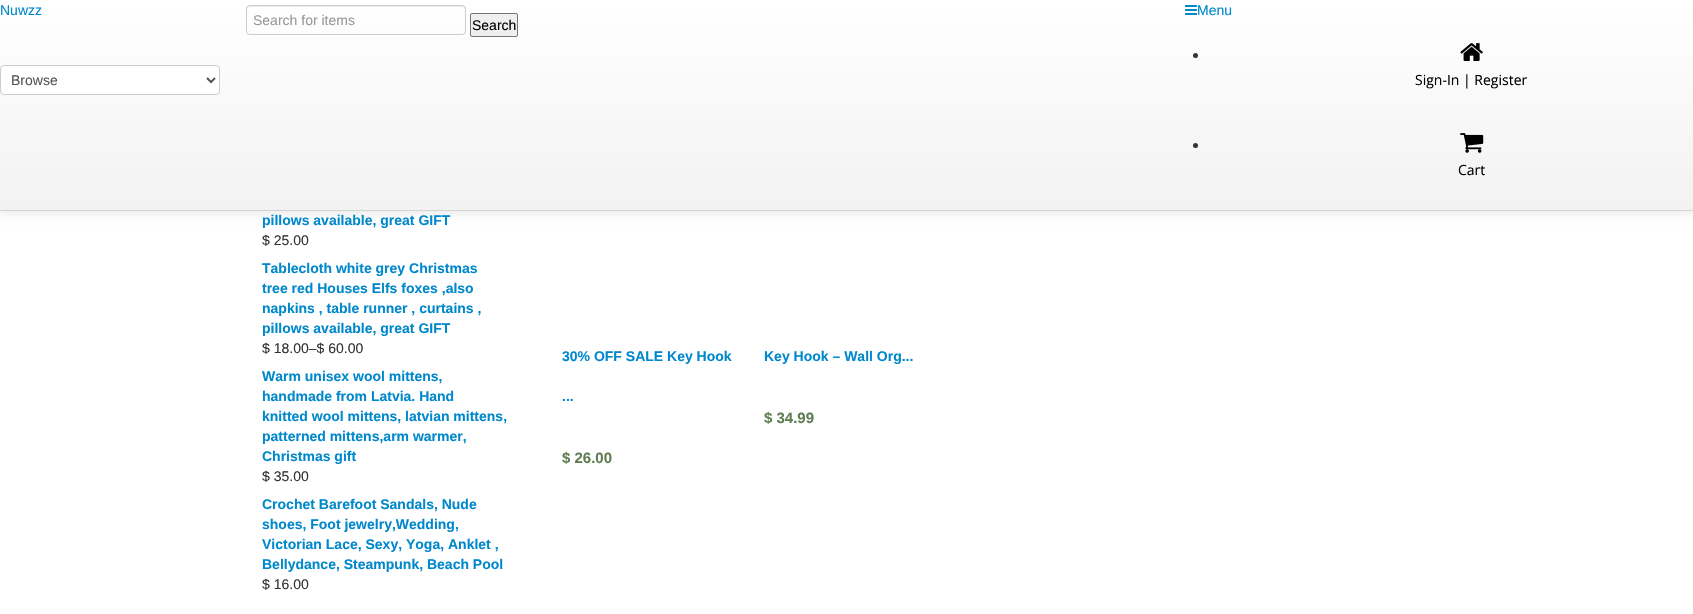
void draw(SkCanvas* canvas) {
    SkPaint paint;
    paint.setAntiAlias(true);
    canvas->clear(0xFFFFFFFF);
    paint.setColor(0x1A000000);
    paint.setMaskFilter(SkMaskFilter::MakeBlur(kNormal_SkBlurStyle, 5));
    canvas->drawRect(SkRect::MakeXYWH(0, 1, 1693, 211), paint);
    paint.setMaskFilter(nullptr);
    {
        const SkColor colors[] = {0xFFFFFFFF, 0xFFF2F2F2};
        const float stops[] = {0, 1};
        const SkPoint ends[] = {{847, 0}, {847, 210}};
        paint.setShader(SkGradientShader::MakeLinear(ends, colors, stops, 2, SkTileMode::kClamp));
        paint.setAlpha(255);
    }
    canvas->drawRect(SkRect::MakeXYWH(0, 0, 1693, 210), paint);
    paint.setShader(nullptr);
    paint.setColor(0xFFD4D4D4);
    canvas->drawRect(SkRect::MakeXYWH(0, 210, 1693, 1), paint);
    SkFont font1(fontMgr->matchFamilyStyle("Liberation Sans", SkFontStyle::Normal()), 14);
    font1.setSubpixel(true);
    paint.setColor(0xFF0088CC);
    canvas->drawString("Nuwzz", 0, 15, font1, paint);
    paint.setColor(0xFFECECEC);
    canvas->drawPath(SkPathBuilder().moveTo(250, 7).lineTo(462, 7).cubicTo(464, 7, 465, 8, 465, 10).lineTo(465, 9).cubicTo(465, 7, 464, 6, 462, 6).lineTo(250, 6).cubicTo(248, 6, 247, 7, 247, 9).lineTo(247, 10).cubicTo(247, 8, 248, 7, 250, 7).close().detach(), paint);
    paint.setStyle(SkPaint::kStroke_Style);
    paint.setStrokeWidth(1);
    paint.setColor(0xFFCCCCCC);
    canvas->drawRoundRect(SkRect::MakeXYWH(246.5f, 5.5f, 219, 29), 3.5f, 3.5f, paint);
    paint.setStyle(SkPaint::kFill_Style);
    paint.setColor(0xFF999999);
    canvas->drawString("Search for items", 253, 25, font1, paint);
    paint.setColor(0xFFEFEFEF);
    canvas->drawRoundRect(SkRect::MakeXYWH(470.5f, 13.5f, 47, 23), 1.5f, 1.5f, paint);
    paint.setStyle(SkPaint::kStroke_Style);
    paint.setColor(0xFF767676);
    canvas->drawRoundRect(SkRect::MakeXYWH(470.5f, 13.5f, 47, 23), 1.5f, 1.5f, paint);
    paint.setStyle(SkPaint::kFill_Style);
    paint.setColor(0xFF000000);
    canvas->drawString("Search", 472, 30, font1, paint);
    canvas->drawImageRect(SkImages::DeferredFromEncodedData(SkData::MakeFromFileName("img1.png")), SkRect::MakeXYWH(1185, 5, 12, 10), SkSamplingOptions());
    paint.setColor(0xFF0088CC);
    canvas->drawString("Menu", 1197, 15, font1, paint);
    paint.setColor(0xFF333333);
    canvas->drawCircle(1195.5f, 55.5f, 2.5f, paint);
    canvas->drawImageRect(SkImages::DeferredFromEncodedData(SkData::MakeFromFileName("img2.png")), SkRect::MakeXYWH(1460, 43, 23, 18), SkSamplingOptions());
    SkFont font2(fontMgr->matchFamilyStyle("Open Sans", SkFontStyle::Normal()), 14);
    font2.setSubpixel(true);
    paint.setColor(0xFF000000);
    canvas->drawString("Sign-In | Register", 1415, 85, font2, paint);
    paint.setColor(0xFF333333);
    canvas->drawCircle(1195.5f, 145.5f, 2.5f, paint);
    canvas->drawImageRect(SkImages::DeferredFromEncodedData(SkData::MakeFromFileName("img3.png")), SkRect::MakeXYWH(1460, 133, 24, 20), SkSamplingOptions());
    paint.setColor(0xFF000000);
    canvas->drawString("Cart", 1458, 175, font2, paint);
    paint.setColor(0xFFFFFFFF);
    canvas->drawRoundRect(SkRect::MakeXYWH(0.5f, 65.5f, 219, 29), 3.5f, 3.5f, paint);
    paint.setStyle(SkPaint::kStroke_Style);
    paint.setColor(0xFFCCCCCC);
    canvas->drawRoundRect(SkRect::MakeXYWH(0.5f, 65.5f, 219, 29), 3.5f, 3.5f, paint);
    paint.setStrokeWidth(2);
    paint.setColor(0xFF555555);
    canvas->drawPath(SkPathBuilder().moveTo(207, 78).lineTo(211, 82).lineTo(215, 78).detach(), paint);
    paint.setStyle(SkPaint::kFill_Style);
    canvas->drawString("Browse", 11, 85, font1, paint);
    SkFont font3(fontMgr->matchFamilyStyle("Liberation Sans", SkFontStyle::Bold()), 14);
    font3.setSubpixel(true);
    paint.setColor(0xFF0088CC);
    canvas->drawString("pillows available, great GIFT", 262, 225, font3, paint);
    paint.setColor(0xFF333333);
    canvas->drawString("$ 25.00", 262, 245, font1, paint);
    paint.setColor(0xFF0088CC);
    canvas->drawString("Tablecloth white grey Christmas", 262, 273, font3, paint);
    canvas->drawString("tree red Houses Elfs foxes ,also", 262, 293, font3, paint);
    canvas->drawString("napkins , table runner , curtains ,", 262, 313, font3, paint);
    canvas->drawString("pillows available, great GIFT", 262, 333, font3, paint);
    paint.setColor(0xFF333333);
    canvas->drawString("$ 18.00–$ 60.00", 262, 353, font1, paint);
    paint.setColor(0xFF0088CC);
    canvas->drawString("Warm unisex wool mittens,", 262, 381, font3, paint);
    canvas->drawString("handmade from Latvia. Hand", 262, 401, font3, paint);
    canvas->drawString("knitted wool mittens, latvian mittens,", 262, 421, font3, paint);
    canvas->drawString("patterned mittens,arm warmer,", 262, 441, font3, paint);
    canvas->drawString("Christmas gift", 262, 461, font3, paint);
    paint.setColor(0xFF333333);
    canvas->drawString("$ 35.00", 262, 481, font1, paint);
    paint.setColor(0xFF0088CC);
    canvas->drawString("Crochet Barefoot Sandals, Nude", 262, 509, font3, paint);
    canvas->drawString("shoes, Foot jewelry,Wedding,", 262, 529, font3, paint);
    canvas->drawString("Victorian Lace, Sexy, Yoga, Anklet ,", 262, 549, font3, paint);
    canvas->drawString("Bellydance, Steampunk, Beach Pool", 262, 569, font3, paint);
    paint.setColor(0xFF333333);
    canvas->drawString("$ 16.00", 262, 589, font1, paint);
    paint.setColor(0xFF0088CC);
    canvas->drawString("30% OFF SALE Key Hook", 562, 361, font3, paint);
    canvas->drawString("...", 562, 401, font3, paint);
    SkFont font4(fontMgr->matchFamilyStyle("Liberation Sans", SkFontStyle::Bold()), 15);
    font4.setSubpixel(true);
    paint.setColor(0xFF5E7E51);
    canvas->drawString("$ 26.00", 562, 463, font4, paint);
    paint.setColor(0xFF0088CC);
    canvas->drawString("Key Hook – Wall Org...", 764, 361, font3, paint);
    paint.setColor(0xFF5E7E51);
    canvas->drawString("$ 34.99", 764, 423, font4, paint);
}
